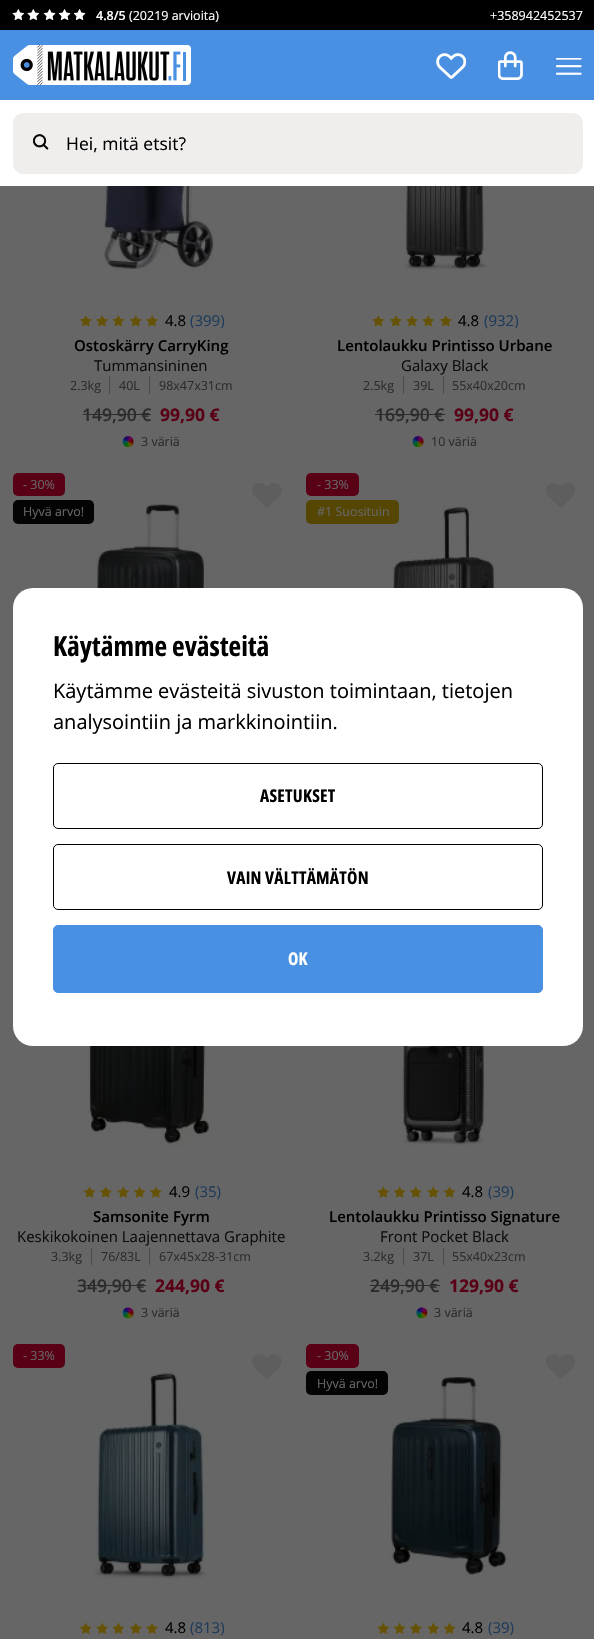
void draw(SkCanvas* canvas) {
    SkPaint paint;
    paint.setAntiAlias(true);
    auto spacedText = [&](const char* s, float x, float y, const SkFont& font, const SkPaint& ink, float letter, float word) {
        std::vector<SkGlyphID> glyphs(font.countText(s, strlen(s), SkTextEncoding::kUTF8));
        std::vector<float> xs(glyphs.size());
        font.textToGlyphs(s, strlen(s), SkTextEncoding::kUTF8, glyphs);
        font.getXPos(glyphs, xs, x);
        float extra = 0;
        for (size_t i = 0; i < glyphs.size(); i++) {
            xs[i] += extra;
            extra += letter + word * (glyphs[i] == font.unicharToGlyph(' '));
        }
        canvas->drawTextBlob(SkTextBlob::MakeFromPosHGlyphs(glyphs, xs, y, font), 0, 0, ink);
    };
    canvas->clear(0xFF666666);
    paint.setColor(0xFF000000);
    canvas->drawRect(SkRect::MakeXYWH(0, 0, 594, 30), paint);
    canvas->drawImageRect(SkImages::DeferredFromEncodedData(SkData::MakeFromFileName("img1.png")), SkRect::MakeXYWH(12, 9, 12, 12), SkSamplingOptions());
    canvas->drawImageRect(SkImages::DeferredFromEncodedData(SkData::MakeFromFileName("img1.png")), SkRect::MakeXYWH(27, 9, 12, 12), SkSamplingOptions());
    canvas->drawImageRect(SkImages::DeferredFromEncodedData(SkData::MakeFromFileName("img2.png")), SkRect::MakeXYWH(43, 9, 13, 12), SkSamplingOptions());
    canvas->drawImageRect(SkImages::DeferredFromEncodedData(SkData::MakeFromFileName("img2.png")), SkRect::MakeXYWH(58, 9, 13, 12), SkSamplingOptions());
    canvas->drawImageRect(SkImages::DeferredFromEncodedData(SkData::MakeFromFileName("img2.png")), SkRect::MakeXYWH(73, 9, 13, 12), SkSamplingOptions());
    SkFont font1(fontMgr->matchFamilyStyle("Open Sans", SkFontStyle(600, SkFontStyle::kNormal_Width, SkFontStyle::kUpright_Slant)), 12.5f);
    font1.setSubpixel(true);
    paint.setColor(0xFFFFFFFF);
    canvas->drawString("4.8/5", 96, 20, font1, paint);
    SkFont font2(fontMgr->matchFamilyStyle("Open Sans", SkFontStyle::Normal()), 12.5f);
    font2.setSubpixel(true);
    canvas->drawString("(20219 arvioita)", 129, 20, font2, paint);
    canvas->drawString("+358942452537", 490, 20, font2, paint);
    paint.setColor(0xFF4A90E2);
    canvas->drawRect(SkRect::MakeXYWH(0, 30, 594, 70), paint);
    canvas->drawImageRect(SkImages::DeferredFromEncodedData(SkData::MakeFromFileName("img3.png")), SkRect::MakeXYWH(13, 45, 178, 40), SkSamplingOptions());
    canvas->drawImageRect(SkImages::DeferredFromEncodedData(SkData::MakeFromFileName("img4.png")), SkRect::MakeXYWH(436, 53, 30, 26), SkSamplingOptions());
    canvas->drawImageRect(SkImages::DeferredFromEncodedData(SkData::MakeFromFileName("img5.png")), SkRect::MakeXYWH(498, 51, 25, 29), SkSamplingOptions());
    canvas->drawImageRect(SkImages::DeferredFromEncodedData(SkData::MakeFromFileName("img6.png")), SkRect::MakeXYWH(556, 58, 26, 17), SkSamplingOptions());
    paint.setColor(0xFFFFFFFF);
    canvas->drawRect(SkRect::MakeXYWH(0, 100, 594, 86), paint);
    paint.setColor(0xFFF0EEED);
    canvas->drawRoundRect(SkRect::MakeXYWH(13.5f, 113.5f, 569, 60), 9.5f, 9.5f, paint);
    paint.setStyle(SkPaint::kStroke_Style);
    paint.setStrokeWidth(1);
    canvas->drawRoundRect(SkRect::MakeXYWH(13.5f, 113.5f, 569, 60), 9.5f, 9.5f, paint);
    canvas->drawImageRect(SkImages::DeferredFromEncodedData(SkData::MakeFromFileName("img7.png")), SkRect::MakeXYWH(33, 134, 16, 16), SkSamplingOptions());
    SkFont font3(fontMgr->matchFamilyStyle("Open Sans", SkFontStyle::Normal()), 17.5f);
    font3.setSubpixel(true);
    paint.setStyle(SkPaint::kFill_Style);
    paint.setColor(0xFF000000);
    canvas->drawString("Hei, mitä etsit?", 66, 150, font3, paint);
    canvas->drawImageRect(SkImages::DeferredFromEncodedData(SkData::MakeFromFileName("img8.png")), SkRect::MakeXYWH(103, 186, 111, 85), SkSamplingOptions());
    canvas->drawImageRect(SkImages::DeferredFromEncodedData(SkData::MakeFromFileName("img9.png")), SkRect::MakeXYWH(80, 315, 12, 12), SkSamplingOptions());
    canvas->drawImageRect(SkImages::DeferredFromEncodedData(SkData::MakeFromFileName("img10.png")), SkRect::MakeXYWH(96, 315, 12, 12), SkSamplingOptions());
    canvas->drawImageRect(SkImages::DeferredFromEncodedData(SkData::MakeFromFileName("img11.png")), SkRect::MakeXYWH(112, 315, 12, 12), SkSamplingOptions());
    canvas->drawImageRect(SkImages::DeferredFromEncodedData(SkData::MakeFromFileName("img9.png")), SkRect::MakeXYWH(130, 315, 12, 12), SkSamplingOptions());
    canvas->drawImageRect(SkImages::DeferredFromEncodedData(SkData::MakeFromFileName("img10.png")), SkRect::MakeXYWH(146, 315, 12, 12), SkSamplingOptions());
    SkFont font4(fontMgr->matchFamilyStyle("Open Sans", SkFontStyle::Normal()), 15);
    font4.setSubpixel(true);
    canvas->drawString("4.8", 165, 326, font4, paint);
    paint.setColor(0xFF1E3A5A);
    canvas->drawString("(399)", 190, 326, font4, paint);
    SkFont font5(fontMgr->matchFamilyStyle("Open Sans", SkFontStyle(600, SkFontStyle::kNormal_Width, SkFontStyle::kUpright_Slant)), 15);
    font5.setSubpixel(true);
    paint.setColor(0xFF000000);
    canvas->drawString("Ostoskärry CarryKing", 74, 351, font5, paint);
    paint.setColor(0xFF0C0C0C);
    canvas->drawString("Tummansininen", 94, 371, font4, paint);
    paint.setColor(0xFF2C2C2C);
    canvas->drawString("2.3kg", 70, 390, font2, paint);
    paint.setColor(0xFF4B4B4B);
    canvas->drawRect(SkRect::MakeXYWH(109, 376, 1, 18), paint);
    paint.setColor(0xFF2C2C2C);
    canvas->drawString("40L", 119, 390, font2, paint);
    paint.setColor(0xFF4B4B4B);
    canvas->drawRect(SkRect::MakeXYWH(149, 376, 1, 18), paint);
    paint.setColor(0xFF2C2C2C);
    canvas->drawString("98x47x31cm", 159, 390, font2, paint);
    SkFont font6(fontMgr->matchFamilyStyle("Open Sans", SkFontStyle(600, SkFontStyle::kNormal_Width, SkFontStyle::kUpright_Slant)), 17.5f);
    font6.setSubpixel(true);
    canvas->drawString("149,90 €", 82, 421, font6, paint);
    canvas->drawRect(SkRect::MakeXYWH(83, 414, 68, 1), paint);
    SkFont font7(fontMgr->matchFamilyStyle("Open Sans", SkFontStyle::Bold()), 17.5f);
    font7.setSubpixel(true);
    paint.setColor(0xFF5A0016);
    canvas->drawString("99,90 €", 160, 421, font7, paint);
    canvas->drawImageRect(SkImages::DeferredFromEncodedData(SkData::MakeFromFileName("img12.png")), SkRect::MakeXYWH(122, 436, 12, 12), SkSamplingOptions());
    paint.setColor(0xFF2C2C2C);
    canvas->drawString("3 väriä", 141, 446, font2, paint);
    canvas->drawImageRect(SkImages::DeferredFromEncodedData(SkData::MakeFromFileName("img13.png")), SkRect::MakeXYWH(403, 186, 86, 85), SkSamplingOptions());
    canvas->drawImageRect(SkImages::DeferredFromEncodedData(SkData::MakeFromFileName("img11.png")), SkRect::MakeXYWH(372, 315, 12, 12), SkSamplingOptions());
    canvas->drawImageRect(SkImages::DeferredFromEncodedData(SkData::MakeFromFileName("img9.png")), SkRect::MakeXYWH(390, 315, 12, 12), SkSamplingOptions());
    canvas->drawImageRect(SkImages::DeferredFromEncodedData(SkData::MakeFromFileName("img10.png")), SkRect::MakeXYWH(406, 315, 12, 12), SkSamplingOptions());
    canvas->drawImageRect(SkImages::DeferredFromEncodedData(SkData::MakeFromFileName("img11.png")), SkRect::MakeXYWH(422, 315, 12, 12), SkSamplingOptions());
    canvas->drawImageRect(SkImages::DeferredFromEncodedData(SkData::MakeFromFileName("img9.png")), SkRect::MakeXYWH(440, 315, 12, 12), SkSamplingOptions());
    paint.setColor(0xFF000000);
    canvas->drawString("4.8", 458, 326, font4, paint);
    paint.setColor(0xFF1E3A5A);
    canvas->drawString("(932)", 484, 326, font4, paint);
    paint.setColor(0xFF000000);
    canvas->drawString("Lentolaukku Printisso Urbane", 337, 351, font5, paint);
    paint.setColor(0xFF0C0C0C);
    canvas->drawString("Galaxy Black", 401, 371, font4, paint);
    paint.setColor(0xFF2C2C2C);
    canvas->drawString("2.5kg", 363, 390, font2, paint);
    paint.setColor(0xFF4B4B4B);
    canvas->drawRect(SkRect::MakeXYWH(403, 376, 1, 18), paint);
    paint.setColor(0xFF2C2C2C);
    canvas->drawString("39L", 413, 390, font2, paint);
    paint.setColor(0xFF4B4B4B);
    canvas->drawRect(SkRect::MakeXYWH(443, 376, 1, 18), paint);
    paint.setColor(0xFF2C2C2C);
    canvas->drawString("55x40x20cm", 452, 390, font2, paint);
    canvas->drawString("169,90 €", 375, 421, font6, paint);
    canvas->drawRect(SkRect::MakeXYWH(375, 414, 70, 1), paint);
    paint.setColor(0xFF5A0016);
    canvas->drawString("99,90 €", 454, 421, font7, paint);
    canvas->drawImageRect(SkImages::DeferredFromEncodedData(SkData::MakeFromFileName("img14.png")), SkRect::MakeXYWH(412, 436, 12, 12), SkSamplingOptions());
    paint.setColor(0xFF2C2C2C);
    canvas->drawString("10 väriä", 431, 446, font2, paint);
    paint.setColor(0xFF5A0016);
    canvas->drawRoundRect(SkRect::MakeXYWH(13, 473, 52, 23), 5, 5, paint);
    paint.setColor(0xFF666666);
    canvas->drawString("- 30%", 23, 489, font2, paint);
    paint.setColor(0xFF040404);
    canvas->drawRoundRect(SkRect::MakeXYWH(13, 500, 81, 24), 5, 5, paint);
    paint.setColor(0xFF666666);
    canvas->drawString("Hyvä arvo!", 23, 516, font2, paint);
    canvas->drawImageRect(SkImages::DeferredFromEncodedData(SkData::MakeFromFileName("img15.png")), SkRect::MakeXYWH(252, 482, 30, 26), SkSamplingOptions());
    canvas->drawImageRect(SkImages::DeferredFromEncodedData(SkData::MakeFromFileName("img16.png")), SkRect::MakeXYWH(96, 501, 115, 87), SkSamplingOptions());
    paint.setColor(0xFF5A0016);
    canvas->drawRoundRect(SkRect::MakeXYWH(306, 473, 53, 23), 5, 5, paint);
    paint.setColor(0xFF666666);
    canvas->drawString("- 33%", 317, 489, font2, paint);
    canvas->drawImageRect(SkImages::DeferredFromEncodedData(SkData::MakeFromFileName("img18.png")), SkRect::MakeXYWH(390, 507, 109, 81), SkSamplingOptions());
    paint.setColor(0xFF554604);
    canvas->drawRoundRect(SkRect::MakeXYWH(306, 500, 93, 24), 5, 5, paint);
    paint.setColor(0xFF666666);
    canvas->drawString("#1 Suosituin", 317, 516, font2, paint);
    canvas->drawImageRect(SkImages::DeferredFromEncodedData(SkData::MakeFromFileName("img17.png")), SkRect::MakeXYWH(546, 482, 30, 26), SkSamplingOptions());
    canvas->drawImageRect(SkImages::DeferredFromEncodedData(SkData::MakeFromFileName("img19.png")), SkRect::MakeXYWH(86, 1046, 126, 101), SkSamplingOptions());
    canvas->drawImageRect(SkImages::DeferredFromEncodedData(SkData::MakeFromFileName("img20.png")), SkRect::MakeXYWH(83, 1186, 13, 12), SkSamplingOptions());
    canvas->drawImageRect(SkImages::DeferredFromEncodedData(SkData::MakeFromFileName("img21.png")), SkRect::MakeXYWH(100, 1186, 12, 12), SkSamplingOptions());
    canvas->drawImageRect(SkImages::DeferredFromEncodedData(SkData::MakeFromFileName("img22.png")), SkRect::MakeXYWH(117, 1186, 12, 12), SkSamplingOptions());
    canvas->drawImageRect(SkImages::DeferredFromEncodedData(SkData::MakeFromFileName("img20.png")), SkRect::MakeXYWH(133, 1186, 13, 12), SkSamplingOptions());
    canvas->drawImageRect(SkImages::DeferredFromEncodedData(SkData::MakeFromFileName("img21.png")), SkRect::MakeXYWH(150, 1186, 12, 12), SkSamplingOptions());
    paint.setColor(0xFF000000);
    canvas->drawString("4.9", 169, 1197, font4, paint);
    paint.setColor(0xFF1E3A5A);
    canvas->drawString("(35)", 195, 1197, font4, paint);
    paint.setColor(0xFF000000);
    canvas->drawString("Samsonite Fyrm", 93, 1222, font5, paint);
    paint.setColor(0xFF0C0C0C);
    canvas->drawString("Keskikokoinen Laajennettava Graphite", 17, 1242, font4, paint);
    paint.setColor(0xFF2C2C2C);
    canvas->drawString("3.3kg", 51, 1261, font2, paint);
    paint.setColor(0xFF4B4B4B);
    canvas->drawRect(SkRect::MakeXYWH(91, 1248, 1, 17), paint);
    paint.setColor(0xFF2C2C2C);
    canvas->drawString("76/83L", 101, 1261, font2, paint);
    paint.setColor(0xFF4B4B4B);
    canvas->drawRect(SkRect::MakeXYWH(149, 1248, 1, 17), paint);
    paint.setColor(0xFF2C2C2C);
    canvas->drawString("67x45x28-31cm", 159, 1261, font2, paint);
    canvas->drawString("349,90 €", 77, 1292, font6, paint);
    canvas->drawRect(SkRect::MakeXYWH(78, 1285, 68, 1), paint);
    paint.setColor(0xFF5A0016);
    canvas->drawString("244,90 €", 155, 1292, font7, paint);
    canvas->drawImageRect(SkImages::DeferredFromEncodedData(SkData::MakeFromFileName("img23.png")), SkRect::MakeXYWH(122, 1307, 12, 12), SkSamplingOptions());
    paint.setColor(0xFF2C2C2C);
    canvas->drawString("3 väriä", 141, 1317, font2, paint);
    canvas->drawImageRect(SkImages::DeferredFromEncodedData(SkData::MakeFromFileName("img24.png")), SkRect::MakeXYWH(402, 1046, 86, 101), SkSamplingOptions());
    canvas->drawImageRect(SkImages::DeferredFromEncodedData(SkData::MakeFromFileName("img22.png")), SkRect::MakeXYWH(377, 1186, 12, 12), SkSamplingOptions());
    canvas->drawImageRect(SkImages::DeferredFromEncodedData(SkData::MakeFromFileName("img20.png")), SkRect::MakeXYWH(393, 1186, 13, 12), SkSamplingOptions());
    canvas->drawImageRect(SkImages::DeferredFromEncodedData(SkData::MakeFromFileName("img21.png")), SkRect::MakeXYWH(410, 1186, 12, 12), SkSamplingOptions());
    canvas->drawImageRect(SkImages::DeferredFromEncodedData(SkData::MakeFromFileName("img22.png")), SkRect::MakeXYWH(427, 1186, 12, 12), SkSamplingOptions());
    canvas->drawImageRect(SkImages::DeferredFromEncodedData(SkData::MakeFromFileName("img20.png")), SkRect::MakeXYWH(443, 1186, 13, 12), SkSamplingOptions());
    paint.setColor(0xFF000000);
    canvas->drawString("4.8", 462, 1197, font4, paint);
    paint.setColor(0xFF1E3A5A);
    canvas->drawString("(39)", 488, 1197, font4, paint);
    paint.setColor(0xFF000000);
    canvas->drawString("Lentolaukku Printisso Signature", 329, 1222, font5, paint);
    paint.setColor(0xFF0C0C0C);
    canvas->drawString("Front Pocket Black", 380, 1242, font4, paint);
    paint.setColor(0xFF2C2C2C);
    canvas->drawString("3.2kg", 363, 1261, font2, paint);
    paint.setColor(0xFF4B4B4B);
    canvas->drawRect(SkRect::MakeXYWH(403, 1248, 1, 17), paint);
    paint.setColor(0xFF2C2C2C);
    canvas->drawString("37L", 413, 1261, font2, paint);
    paint.setColor(0xFF4B4B4B);
    canvas->drawRect(SkRect::MakeXYWH(443, 1248, 1, 17), paint);
    paint.setColor(0xFF2C2C2C);
    canvas->drawString("55x40x23cm", 452, 1261, font2, paint);
    canvas->drawString("249,90 €", 370, 1292, font6, paint);
    canvas->drawRect(SkRect::MakeXYWH(370, 1285, 70, 1), paint);
    paint.setColor(0xFF5A0016);
    canvas->drawString("129,90 €", 449, 1292, font7, paint);
    canvas->drawImageRect(SkImages::DeferredFromEncodedData(SkData::MakeFromFileName("img25.png")), SkRect::MakeXYWH(416, 1307, 12, 12), SkSamplingOptions());
    paint.setColor(0xFF2C2C2C);
    canvas->drawString("3 väriä", 434, 1317, font2, paint);
    paint.setColor(0xFF5A0016);
    canvas->drawRoundRect(SkRect::MakeXYWH(13, 1344, 52, 24), 5, 5, paint);
    paint.setColor(0xFF666666);
    canvas->drawString("- 33%", 23, 1360, font2, paint);
    canvas->drawImageRect(SkImages::DeferredFromEncodedData(SkData::MakeFromFileName("img26.png")), SkRect::MakeXYWH(252, 1354, 30, 25), SkSamplingOptions());
    canvas->drawImageRect(SkImages::DeferredFromEncodedData(SkData::MakeFromFileName("img27.png")), SkRect::MakeXYWH(94, 1372, 115, 207), SkSamplingOptions());
    canvas->drawImageRect(SkImages::DeferredFromEncodedData(SkData::MakeFromFileName("img28.png")), SkRect::MakeXYWH(80, 1622, 12, 12), SkSamplingOptions());
    canvas->drawImageRect(SkImages::DeferredFromEncodedData(SkData::MakeFromFileName("img29.png")), SkRect::MakeXYWH(96, 1622, 12, 12), SkSamplingOptions());
    canvas->drawImageRect(SkImages::DeferredFromEncodedData(SkData::MakeFromFileName("img30.png")), SkRect::MakeXYWH(112, 1622, 12, 12), SkSamplingOptions());
    canvas->drawImageRect(SkImages::DeferredFromEncodedData(SkData::MakeFromFileName("img28.png")), SkRect::MakeXYWH(130, 1622, 12, 12), SkSamplingOptions());
    canvas->drawImageRect(SkImages::DeferredFromEncodedData(SkData::MakeFromFileName("img29.png")), SkRect::MakeXYWH(146, 1622, 12, 12), SkSamplingOptions());
    paint.setColor(0xFF000000);
    canvas->drawString("4.8", 165, 1633, font4, paint);
    paint.setColor(0xFF1E3A5A);
    canvas->drawString("(813)", 190, 1633, font4, paint);
    paint.setColor(0xFF5A0016);
    canvas->drawRoundRect(SkRect::MakeXYWH(306, 1344, 53, 24), 5, 5, paint);
    paint.setColor(0xFF666666);
    canvas->drawString("- 30%", 317, 1360, font2, paint);
    paint.setColor(0xFF040404);
    canvas->drawRoundRect(SkRect::MakeXYWH(306, 1371, 82, 24), 5, 5, paint);
    paint.setColor(0xFF666666);
    canvas->drawString("Hyvä arvo!", 317, 1388, font2, paint);
    canvas->drawImageRect(SkImages::DeferredFromEncodedData(SkData::MakeFromFileName("img31.png")), SkRect::MakeXYWH(546, 1354, 30, 25), SkSamplingOptions());
    canvas->drawImageRect(SkImages::DeferredFromEncodedData(SkData::MakeFromFileName("img32.png")), SkRect::MakeXYWH(390, 1377, 119, 199), SkSamplingOptions());
    canvas->drawImageRect(SkImages::DeferredFromEncodedData(SkData::MakeFromFileName("img30.png")), SkRect::MakeXYWH(377, 1622, 12, 12), SkSamplingOptions());
    canvas->drawImageRect(SkImages::DeferredFromEncodedData(SkData::MakeFromFileName("img33.png")), SkRect::MakeXYWH(393, 1622, 13, 12), SkSamplingOptions());
    canvas->drawImageRect(SkImages::DeferredFromEncodedData(SkData::MakeFromFileName("img28.png")), SkRect::MakeXYWH(410, 1622, 12, 12), SkSamplingOptions());
    canvas->drawImageRect(SkImages::DeferredFromEncodedData(SkData::MakeFromFileName("img30.png")), SkRect::MakeXYWH(427, 1622, 12, 12), SkSamplingOptions());
    canvas->drawImageRect(SkImages::DeferredFromEncodedData(SkData::MakeFromFileName("img33.png")), SkRect::MakeXYWH(443, 1622, 13, 12), SkSamplingOptions());
    paint.setColor(0xFF000000);
    canvas->drawString("4.8", 462, 1633, font4, paint);
    paint.setColor(0xFF1E3A5A);
    canvas->drawString("(39)", 488, 1633, font4, paint);
    paint.setColor(0xFFFFFFFF);
    canvas->drawRoundRect(SkRect::MakeXYWH(13, 588, 570, 458), 20, 20, paint);
    SkFont font8(fontMgr->matchFamilyStyle("Open Sans Condensed", SkFontStyle::Bold()), 27.5f);
    font8.setSubpixel(true);
    paint.setColor(0xFF000000);
    canvas->drawString("Käytämme evästeitä", 53, 656, font8, paint);
    SkFont font9(fontMgr->matchFamilyStyle("Open Sans", SkFontStyle::Normal()), 20);
    font9.setSubpixel(true);
    canvas->drawString("Käytämme evästeitä sivuston toimintaan, tietojen", 53, 698, font9, paint);
    canvas->drawString("analysointiin ja markkinointiin.", 53, 729, font9, paint);
    paint.setStyle(SkPaint::kStroke_Style);
    canvas->drawRoundRect(SkRect::MakeXYWH(53.5f, 763.5f, 489, 65), 4.5f, 4.5f, paint);
    SkFont font10(fontMgr->matchFamilyStyle("Open Sans Condensed", SkFontStyle::Bold()), 17.5f);
    font10.setSubpixel(true);
    paint.setStyle(SkPaint::kFill_Style);
    spacedText("ASETUKSET", 260, 802, font10, paint, 0.25f, 0);
    paint.setStyle(SkPaint::kStroke_Style);
    canvas->drawRoundRect(SkRect::MakeXYWH(53.5f, 844.5f, 489, 65), 4.5f, 4.5f, paint);
    paint.setStyle(SkPaint::kFill_Style);
    spacedText("VAIN VÄLTTÄMÄTÖN", 227, 884, font10, paint, 0.25f, 0);
    paint.setColor(0xFF4A90E2);
    canvas->drawRoundRect(SkRect::MakeXYWH(53.5f, 925.5f, 489, 67), 4.5f, 4.5f, paint);
    paint.setStyle(SkPaint::kStroke_Style);
    canvas->drawRoundRect(SkRect::MakeXYWH(53.5f, 925.5f, 489, 67), 4.5f, 4.5f, paint);
    paint.setStyle(SkPaint::kFill_Style);
    paint.setColor(0xFFFFFFFF);
    spacedText("OK", 288, 965, font10, paint, 0.25f, 0);
}
